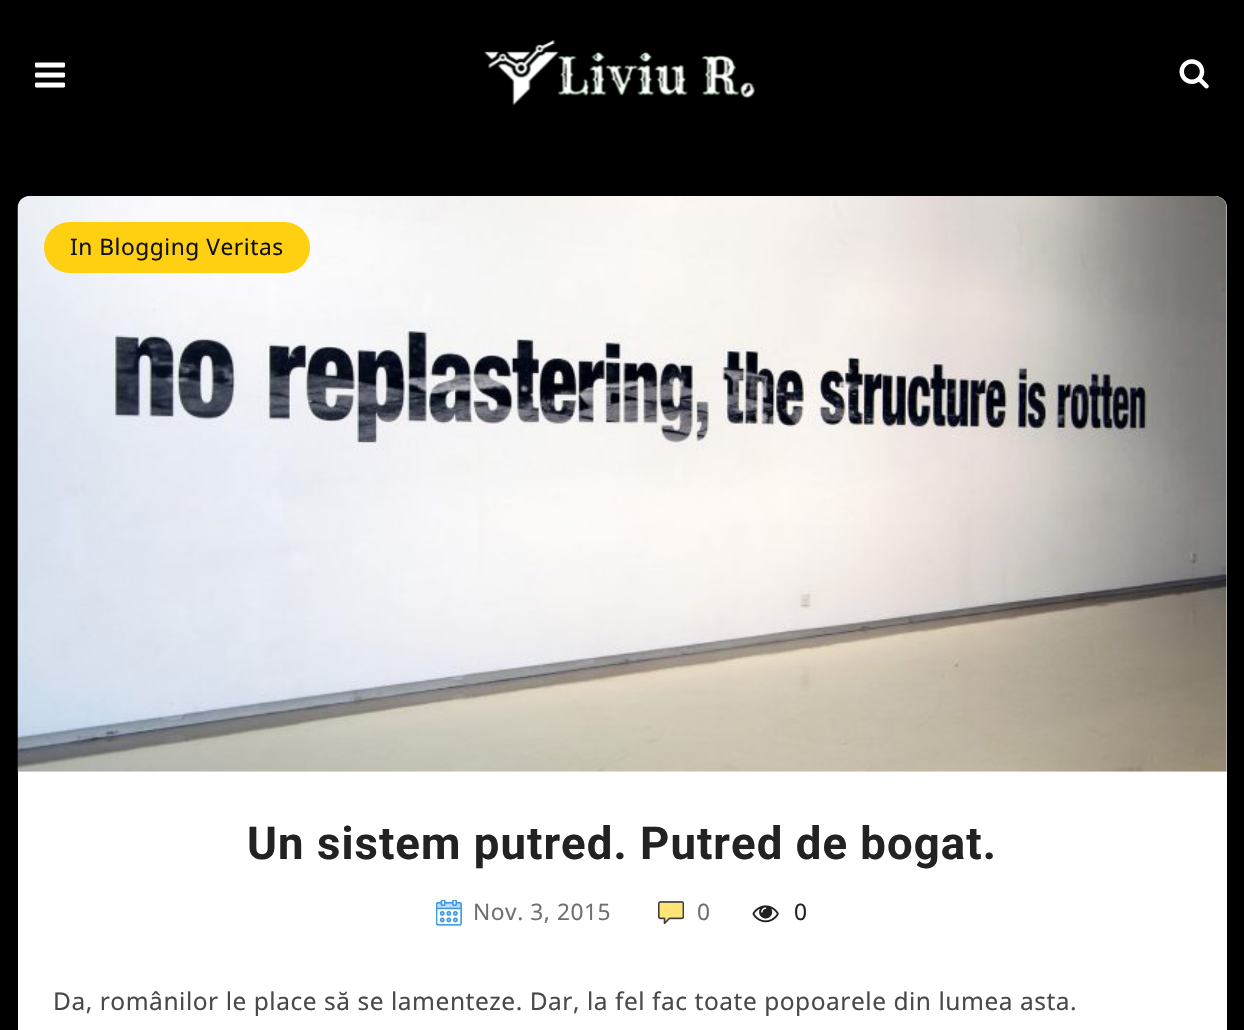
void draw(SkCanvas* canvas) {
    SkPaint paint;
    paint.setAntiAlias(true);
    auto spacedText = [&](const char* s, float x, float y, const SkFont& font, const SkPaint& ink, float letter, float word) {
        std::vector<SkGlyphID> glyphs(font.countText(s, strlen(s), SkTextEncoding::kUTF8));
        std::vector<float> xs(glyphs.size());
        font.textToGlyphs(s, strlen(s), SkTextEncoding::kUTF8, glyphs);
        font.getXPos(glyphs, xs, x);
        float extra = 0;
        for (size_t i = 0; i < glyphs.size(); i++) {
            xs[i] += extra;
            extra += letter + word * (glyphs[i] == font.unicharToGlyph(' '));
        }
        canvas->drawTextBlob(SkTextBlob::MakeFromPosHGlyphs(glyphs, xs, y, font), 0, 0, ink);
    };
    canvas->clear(0xFF000000);
    canvas->drawImageRect(SkImages::DeferredFromEncodedData(SkData::MakeFromFileName("img1.png")), SkRect::MakeXYWH(35, 62, 30, 26), SkSamplingOptions());
    canvas->drawImageRect(SkImages::DeferredFromEncodedData(SkData::MakeFromFileName("img2.png")), SkRect::MakeXYWH(484, 39, 271, 67), SkSamplingOptions());
    canvas->drawImageRect(SkImages::DeferredFromEncodedData(SkData::MakeFromFileName("img3.png")), SkRect::MakeXYWH(1179, 59, 30, 30), SkSamplingOptions());
    paint.setColor(0xFFFFFFFF);
    canvas->drawRoundRect(SkRect::MakeXYWH(18, 196, 1209, 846), 12, 12, paint);
    canvas->drawImageRect(SkImages::DeferredFromEncodedData(SkData::MakeFromFileName("img4.png")), SkRect::MakeXYWH(17, 196, 1210, 576), SkSamplingOptions());
    paint.setColor(0xFFFFD012);
    canvas->drawRoundRect(SkRect::MakeXYWH(44, 222, 266, 51), 25.5f, 25.5f, paint);
    SkFont font1(fontMgr->matchFamilyStyle("Noto Sans", SkFontStyle::Normal()), 22.75f);
    font1.setSubpixel(true);
    paint.setColor(0xFF111111);
    spacedText("In Blogging Veritas", 70, 255, font1, paint, 0.53f, 0);
    SkFont font2(fontMgr->matchFamilyStyle("Roboto", SkFontStyle::Bold()), 45.5f);
    font2.setSubpixel(true);
    paint.setColor(0xFF222222);
    spacedText("Un sistem putred. Putred de bogat.", 247, 859, font2, paint, 1.05f, 0);
    canvas->drawImageRect(SkImages::DeferredFromEncodedData(SkData::MakeFromFileName("img5.png")), SkRect::MakeXYWH(436, 900, 26, 26), SkSamplingOptions());
    paint.setColor(0xFF6F6F6F);
    spacedText("Nov. 3, 2015", 473, 920, font1, paint, 0.53f, 0);
    canvas->drawImageRect(SkImages::DeferredFromEncodedData(SkData::MakeFromFileName("img6.png")), SkRect::MakeXYWH(658, 901, 26, 24), SkSamplingOptions());
    spacedText("0", 697, 920, font1, paint, 0.53f, 0);
    canvas->drawImageRect(SkImages::DeferredFromEncodedData(SkData::MakeFromFileName("img7.png")), SkRect::MakeXYWH(752, 905, 27, 18), SkSamplingOptions());
    paint.setColor(0xFF222222);
    spacedText("0", 794, 920, font1, paint, 0.53f, 0);
    SkFont font3(fontMgr->matchFamilyStyle("Noto Sans", SkFontStyle::Normal()), 24.5f);
    font3.setSubpixel(true);
    paint.setColor(0xFF494949);
    spacedText("Da, românilor le place să se lamenteze. Dar, la fel fac toate popoarele din lumea asta.", 53, 1010, font3, paint, 0.53f, 0);
}
